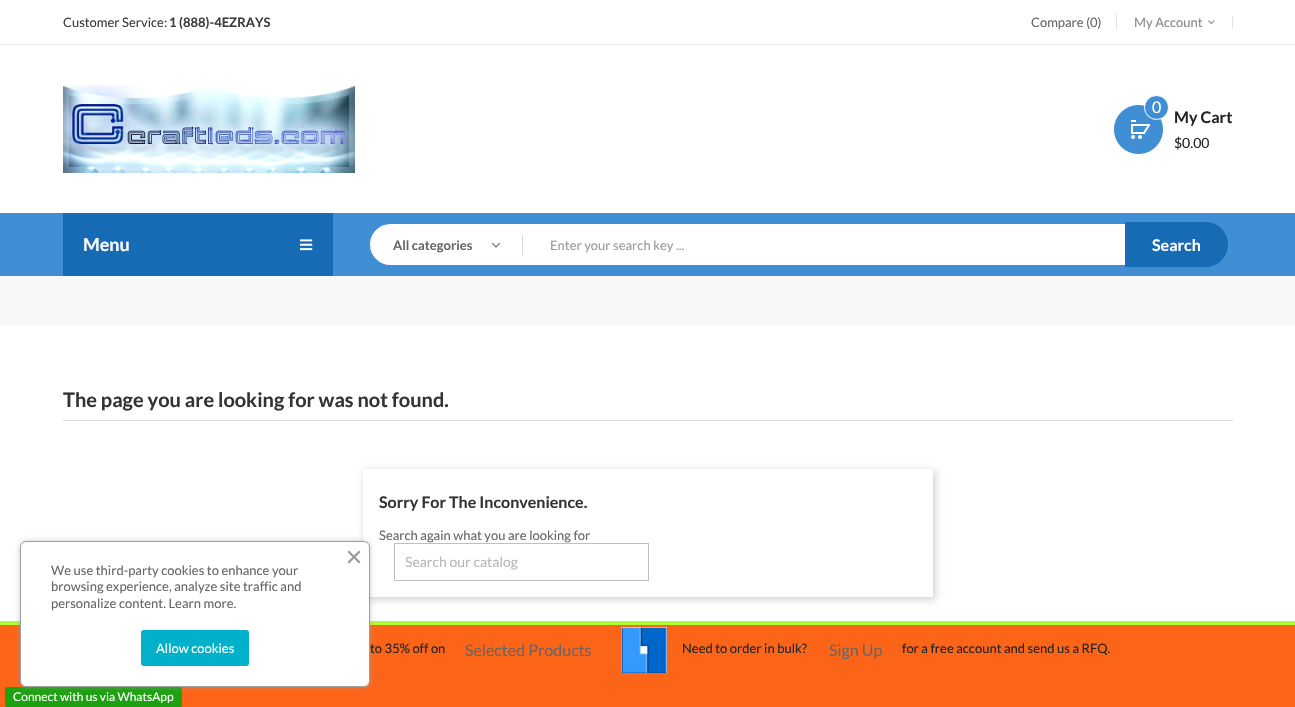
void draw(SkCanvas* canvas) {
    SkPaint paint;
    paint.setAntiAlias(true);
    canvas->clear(0xFFFFFFFF);
    paint.setColor(0xFFEBEBEB);
    canvas->drawRect(SkRect::MakeXYWH(0, 44, 1295, 1), paint);
    SkFont font1(fontMgr->matchFamilyStyle("Lato", SkFontStyle::Normal()), 13);
    font1.setSubpixel(true);
    paint.setColor(0xFF3D3D3D);
    canvas->drawString("Customer Service:", 63, 27, font1, paint);
    SkFont font2(fontMgr->matchFamilyStyle("Lato", SkFontStyle::Bold()), 13);
    font2.setSubpixel(true);
    canvas->drawString("1 (888)-4EZRAYS", 169, 27, font2, paint);
    paint.setColor(0xFF666666);
    canvas->drawString("Compare (0)", 1031, 27, font1, paint);
    paint.setColor(0xFFE4E3E3);
    canvas->drawRect(SkRect::MakeXYWH(1116, 14, 1, 16), paint);
    canvas->drawRect(SkRect::MakeXYWH(1232, 16, 1, 13), paint);
    paint.setColor(0xFF888888);
    canvas->drawString("My Account", 1134, 27, font1, paint);
    canvas->drawImageRect(SkImages::DeferredFromEncodedData(SkData::MakeFromFileName("img1.png")), SkRect::MakeXYWH(1208, 20, 7, 5), SkSamplingOptions());
    canvas->drawImageRect(SkImages::DeferredFromEncodedData(SkData::MakeFromFileName("img2.png")), SkRect::MakeXYWH(63, 85, 292, 88), SkSamplingOptions());
    canvas->drawImageRect(SkImages::DeferredFromEncodedData(SkData::MakeFromFileName("img3.png")), SkRect::MakeXYWH(1114, 105, 49, 49), SkSamplingOptions());
    paint.setColor(0xFF408ED4);
    canvas->drawCircle(1156.5f, 107.5f, 12, paint);
    paint.setStyle(SkPaint::kStroke_Style);
    paint.setStrokeWidth(1);
    paint.setColor(0xFFFFFFFF);
    canvas->drawCircle(1156.5f, 107.5f, 12, paint);
    SkFont font3(fontMgr->matchFamilyStyle("Lato", SkFontStyle::Normal()), 16);
    font3.setSubpixel(true);
    paint.setStyle(SkPaint::kFill_Style);
    canvas->drawString("0", 1152, 113, font3, paint);
    SkFont font4(fontMgr->matchFamilyStyle("Lato", SkFontStyle::Bold()), 16);
    font4.setSubpixel(true);
    paint.setColor(0xFF232323);
    canvas->drawString("My Cart", 1174, 123, font4, paint);
    SkFont font5(fontMgr->matchFamilyStyle("Lato", SkFontStyle::Normal()), 14);
    font5.setSubpixel(true);
    canvas->drawString("$0.00", 1174, 148, font5, paint);
    paint.setColor(0xFF408ED4);
    canvas->drawRect(SkRect::MakeXYWH(0, 213, 1295, 63), paint);
    paint.setColor(0xFF176AB4);
    canvas->drawRect(SkRect::MakeXYWH(63, 213, 270, 63), paint);
    SkFont font6(fontMgr->matchFamilyStyle("Lato", SkFontStyle::Bold()), 18);
    font6.setSubpixel(true);
    paint.setColor(0xFFFFFFFF);
    canvas->drawString("Menu", 83, 251, font6, paint);
    canvas->drawImageRect(SkImages::DeferredFromEncodedData(SkData::MakeFromFileName("img4.png")), SkRect::MakeXYWH(300, 239, 13, 12), SkSamplingOptions());
    canvas->drawRoundRect(SkRect::MakeXYWH(369, 223, 858, 43), 21.5f, 21.5f, paint);
    paint.setStyle(SkPaint::kStroke_Style);
    paint.setStrokeWidth(2);
    paint.setColor(0xFF408ED4);
    canvas->drawRoundRect(SkRect::MakeXYWH(369, 223, 858, 43), 21.5f, 21.5f, paint);
    canvas->drawImageRect(SkImages::DeferredFromEncodedData(SkData::MakeFromFileName("img5.png")), SkRect::MakeXYWH(492, 243, 8, 5), SkSamplingOptions());
    paint.setStyle(SkPaint::kFill_Style);
    paint.setColor(0xFFD9D9D9);
    canvas->drawRect(SkRect::MakeXYWH(522, 235, 1, 20), paint);
    paint.setColor(0xFF666666);
    canvas->drawString("All categories", 393, 250, font2, paint);
    paint.setColor(0xFF999999);
    canvas->drawString("Enter your search key ...", 550, 250, font1, paint);
    paint.setColor(0xFF176AB4);
    canvas->drawPath(SkPathBuilder().moveTo(1125, 222).lineTo(1205.5f, 222).cubicTo(1218, 222, 1228, 232, 1228, 244.5f).cubicTo(1228, 257, 1218, 267, 1205.5f, 267).lineTo(1125, 267).close().detach(), paint);
    paint.setColor(0xFFFFFFFF);
    canvas->drawString("Search", 1152, 251, font4, paint);
    paint.setColor(0xFFF8F8F8);
    canvas->drawRect(SkRect::MakeXYWH(0, 276, 1295, 50), paint);
    paint.setColor(0xFFD9D9D9);
    canvas->drawRect(SkRect::MakeXYWH(63, 420, 1170, 1), paint);
    SkFont font7(fontMgr->matchFamilyStyle("Lato", SkFontStyle::Bold()), 20);
    font7.setSubpixel(true);
    paint.setColor(0xFF333333);
    canvas->drawString("The page you are looking for was not found.", 63, 407, font7, paint);
    canvas->save();
    canvas->clipPath(SkPathBuilder(SkPathFillType::kEvenOdd).moveTo(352, 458).lineTo(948, 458).lineTo(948, 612).lineTo(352, 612).close().moveTo(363, 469).lineTo(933, 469).lineTo(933, 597).lineTo(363, 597).close().detach(), true);
    paint.setColor(0x33000000);
    paint.setMaskFilter(SkMaskFilter::MakeBlur(kNormal_SkBlurStyle, 4));
    canvas->drawRect(SkRect::MakeXYWH(365, 471, 570, 128), paint);
    paint.setMaskFilter(nullptr);
    canvas->restore();
    paint.setColor(0xFF333333);
    canvas->drawString("Sorry For The Inconvenience.", 379, 508, font4, paint);
    paint.setColor(0xFF666666);
    canvas->drawString("Search again what you are looking for", 379, 540, font1, paint);
    paint.setStyle(SkPaint::kStroke_Style);
    paint.setStrokeWidth(1);
    paint.setColor(0xFFBFBFBF);
    canvas->drawRect(SkRect::MakeXYWH(394.5f, 543.5f, 254, 37), paint);
    paint.setStyle(SkPaint::kFill_Style);
    paint.setColor(0xFFB7B7B7);
    canvas->drawString("Search our catalog", 405, 567, font5, paint);
    paint.setColor(0xFFFC6418);
    canvas->drawRect(SkRect::MakeXYWH(0, 625, 1295, 82), paint);
    paint.setColor(0xFF1DA110);
    canvas->drawRoundRect(SkRect::MakeXYWH(5, 687, 177, 20), 2, 2, paint);
    SkFont font8(fontMgr->matchFamilyStyle("Lato", SkFontStyle::Normal()), 12);
    font8.setSubpixel(true);
    paint.setColor(0xFFFFFFFF);
    canvas->drawString("Connect with us via WhatsApp", 13, 701, font8, paint);
    paint.setColor(0xFFAEFD32);
    canvas->drawRect(SkRect::MakeXYWH(0, 621, 1295, 4), paint);
    paint.setColor(0xFF9E9E9E);
    paint.setMaskFilter(SkMaskFilter::MakeBlur(kNormal_SkBlurStyle, 3.5f));
    canvas->drawRoundRect(SkRect::MakeXYWH(22, 543, 346, 142), 4, 4, paint);
    paint.setMaskFilter(nullptr);
    paint.setColor(0xFFFFFFFF);
    canvas->drawRoundRect(SkRect::MakeXYWH(20.5f, 541.5f, 349, 145), 5.5f, 5.5f, paint);
    paint.setStyle(SkPaint::kStroke_Style);
    paint.setColor(0xFF9E9E9E);
    canvas->drawRoundRect(SkRect::MakeXYWH(20.5f, 541.5f, 349, 145), 5.5f, 5.5f, paint);
    paint.setStyle(SkPaint::kFill_Style);
    paint.setColor(0xFF999999);
    canvas->drawPath(SkPathBuilder().moveTo(347.5f, 562).lineTo(359, 550.5f).lineTo(360.5f, 552).lineTo(349, 563.5f).close().detach(), paint);
    canvas->drawPath(SkPathBuilder().moveTo(349, 550.5f).lineTo(360.5f, 562).lineTo(359, 563.5f).lineTo(347.5f, 552).close().detach(), paint);
    paint.setColor(0xFF666666);
    canvas->drawString("We use third-party cookies to enhance your", 51, 575, font1, paint);
    canvas->drawString("browsing experience, analyze site traffic and", 51, 591, font1, paint);
    canvas->drawString("personalize content. Learn more.", 51, 608, font1, paint);
    paint.setColor(0xFF00B1C9);
    canvas->drawRoundRect(SkRect::MakeXYWH(141, 630, 108, 36), 3, 3, paint);
    paint.setColor(0xFFFFFFFF);
    canvas->drawString("Allow cookies", 156, 653, font1, paint);
    paint.setColor(0xFF232323);
    canvas->drawString("to 35% off on", 370, 653, font1, paint);
    paint.setColor(0xFF666666);
    canvas->drawString("Selected Products", 465, 656, font3, paint);
    canvas->drawImageRect(SkImages::DeferredFromEncodedData(SkData::MakeFromFileName("img6.png")), SkRect::MakeXYWH(621, 627, 46, 46), SkSamplingOptions());
    paint.setColor(0xFF232323);
    canvas->drawString("Need to order in bulk?", 682, 653, font1, paint);
    paint.setColor(0xFF666666);
    canvas->drawString("Sign Up", 829, 656, font3, paint);
    paint.setColor(0xFF232323);
    canvas->drawString("for a free account and send us a RFQ.", 902, 653, font1, paint);
}
